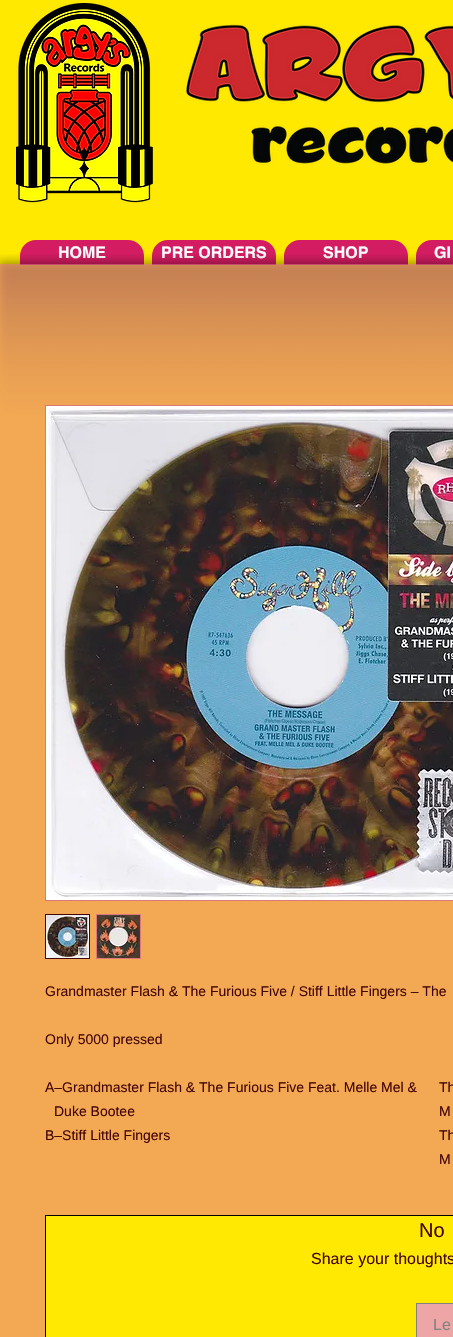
void draw(SkCanvas* canvas) {
    SkPaint paint;
    paint.setAntiAlias(true);
    canvas->clear(0xFFFFE900);
    canvas->drawImageRect(SkImages::DeferredFromEncodedData(SkData::MakeFromFileName("img1.png")), SkRect::MakeXYWH(16, 3, 137, 200), SkSamplingOptions());
    canvas->drawImageRect(SkImages::DeferredFromEncodedData(SkData::MakeFromFileName("img2.png")), SkRect::MakeXYWH(186, 24, 267, 141), SkSamplingOptions());
    paint.setColor(0xFFF3A953);
    canvas->drawRect(SkRect::MakeXYWH(0, 264, 453, 1073), paint);
    paint.setColor(0xFFD41C62);
    canvas->drawPath(SkPathBuilder().moveTo(36, 240).lineTo(128, 240).cubicTo(137, 240, 144, 247, 144, 256).lineTo(144, 265).lineTo(20, 265).lineTo(20, 256).cubicTo(20, 247, 27, 240, 36, 240).close().detach(), paint);
    paint.setColor(0xFFE04E7F);
    canvas->drawRect(SkRect::MakeXYWH(20, 264, 124, 1), paint);
    SkFont font1(fontMgr->matchFamilyStyle("helvetica", SkFontStyle::Bold()), 16);
    font1.setSubpixel(true);
    paint.setColor(0xFFFFFFFF);
    canvas->drawString("HOME", 58, 258, font1, paint);
    paint.setColor(0xFFD41C62);
    canvas->drawPath(SkPathBuilder().moveTo(168, 240).lineTo(260, 240).cubicTo(269, 240, 276, 247, 276, 256).lineTo(276, 265).lineTo(152, 265).lineTo(152, 256).cubicTo(152, 247, 159, 240, 168, 240).close().detach(), paint);
    paint.setColor(0xFFE04E7F);
    canvas->drawRect(SkRect::MakeXYWH(152, 264, 124, 1), paint);
    paint.setColor(0xFFFFFFFF);
    canvas->drawString("PRE ORDERS", 161, 258, font1, paint);
    paint.setColor(0xFFD41C62);
    canvas->drawPath(SkPathBuilder().moveTo(300, 240).lineTo(392, 240).cubicTo(401, 240, 408, 247, 408, 256).lineTo(408, 265).lineTo(284, 265).lineTo(284, 256).cubicTo(284, 247, 291, 240, 300, 240).close().detach(), paint);
    paint.setColor(0xFFE04E7F);
    canvas->drawRect(SkRect::MakeXYWH(284, 264, 124, 1), paint);
    paint.setColor(0xFFFFFFFF);
    canvas->drawString("SHOP", 323, 258, font1, paint);
    paint.setColor(0xFFD41C62);
    canvas->drawPath(SkPathBuilder().moveTo(432, 240).lineTo(453, 240).cubicTo(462, 240, 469, 247, 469, 256).lineTo(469, 265).lineTo(416, 265).lineTo(416, 256).cubicTo(416, 247, 423, 240, 432, 240).close().detach(), paint);
    paint.setColor(0xFFE04E7F);
    canvas->drawRect(SkRect::MakeXYWH(416, 264, 37, 1), paint);
    paint.setColor(0xFFFFFFFF);
    canvas->drawString("GI", 434, 258, font1, paint);
    canvas->drawImageRect(SkImages::DeferredFromEncodedData(SkData::MakeFromFileName("img3.png")), SkRect::MakeXYWH(0, 254, 35, 160), SkSamplingOptions());
    canvas->drawImageRect(SkImages::DeferredFromEncodedData(SkData::MakeFromFileName("img4.png")), SkRect::MakeXYWH(35, 254, 418, 160), SkSamplingOptions());
    paint.setStyle(SkPaint::kStroke_Style);
    paint.setStrokeWidth(1);
    paint.setColor(0xFFDD7779);
    canvas->drawRect(SkRect::MakeXYWH(45.5f, 405.5f, 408, 495), paint);
    canvas->drawImageRect(SkImages::DeferredFromEncodedData(SkData::MakeFromFileName("img5.png")), SkRect::MakeXYWH(46, 406, 407, 494), SkSamplingOptions());
    paint.setColor(0xFF440506);
    canvas->drawRect(SkRect::MakeXYWH(45.5f, 914.5f, 44, 44), paint);
    canvas->drawImageRect(SkImages::DeferredFromEncodedData(SkData::MakeFromFileName("img6.png")), SkRect::MakeXYWH(46, 915, 43, 43), SkSamplingOptions());
    paint.setColor(0xFFDD7779);
    canvas->drawRect(SkRect::MakeXYWH(96.5f, 914.5f, 44, 44), paint);
    canvas->drawImageRect(SkImages::DeferredFromEncodedData(SkData::MakeFromFileName("img7.png")), SkRect::MakeXYWH(97, 915, 43, 43), SkSamplingOptions());
    SkFont font2(fontMgr->matchFamilyStyle("Liberation Sans", SkFontStyle::Normal()), 14);
    font2.setSubpixel(true);
    paint.setStyle(SkPaint::kFill_Style);
    paint.setColor(0xFF440506);
    canvas->drawString("Grandmaster Flash & The Furious Five / Stiff Little Fingers – The", 45, 996, font2, paint);
    canvas->drawString("Only 5000 pressed", 45, 1044, font2, paint);
    canvas->drawString("A–Grandmaster Flash & The Furious Five Feat. Melle Mel &", 45, 1092, font2, paint);
    canvas->drawString("Th", 439, 1092, font2, paint);
    canvas->drawString("M", 439, 1116, font2, paint);
    canvas->drawString("Duke Bootee", 54, 1116, font2, paint);
    canvas->drawString("B–Stiff Little Fingers", 45, 1140, font2, paint);
    canvas->drawString("Th", 439, 1140, font2, paint);
    canvas->drawString("M", 439, 1164, font2, paint);
    paint.setColor(0xFFFFE902);
    canvas->drawRect(SkRect::MakeXYWH(45.5f, 1215.5f, 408, 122), paint);
    paint.setStyle(SkPaint::kStroke_Style);
    paint.setColor(0xFF000000);
    canvas->drawRect(SkRect::MakeXYWH(45.5f, 1215.5f, 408, 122), paint);
    SkFont font3(fontMgr->matchFamilyStyle("Liberation Sans", SkFontStyle::Normal()), 20);
    font3.setSubpixel(true);
    paint.setStyle(SkPaint::kFill_Style);
    paint.setColor(0xFF440506);
    canvas->drawString("No", 419, 1237, font3, paint);
    SkFont font4(fontMgr->matchFamilyStyle("Liberation Sans", SkFontStyle::Normal()), 16);
    font4.setSubpixel(true);
    canvas->drawString("Share your thoughts", 311, 1264, font4, paint);
    paint.setColor(0xFFEDA5A6);
    canvas->drawRect(SkRect::MakeXYWH(416.5f, 1303.5f, 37, 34), paint);
    paint.setStyle(SkPaint::kStroke_Style);
    paint.setColor(0xFF828282);
    canvas->drawRect(SkRect::MakeXYWH(416.5f, 1303.5f, 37, 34), paint);
    paint.setStyle(SkPaint::kFill_Style);
    canvas->drawString("Le", 433, 1330, font4, paint);
}
